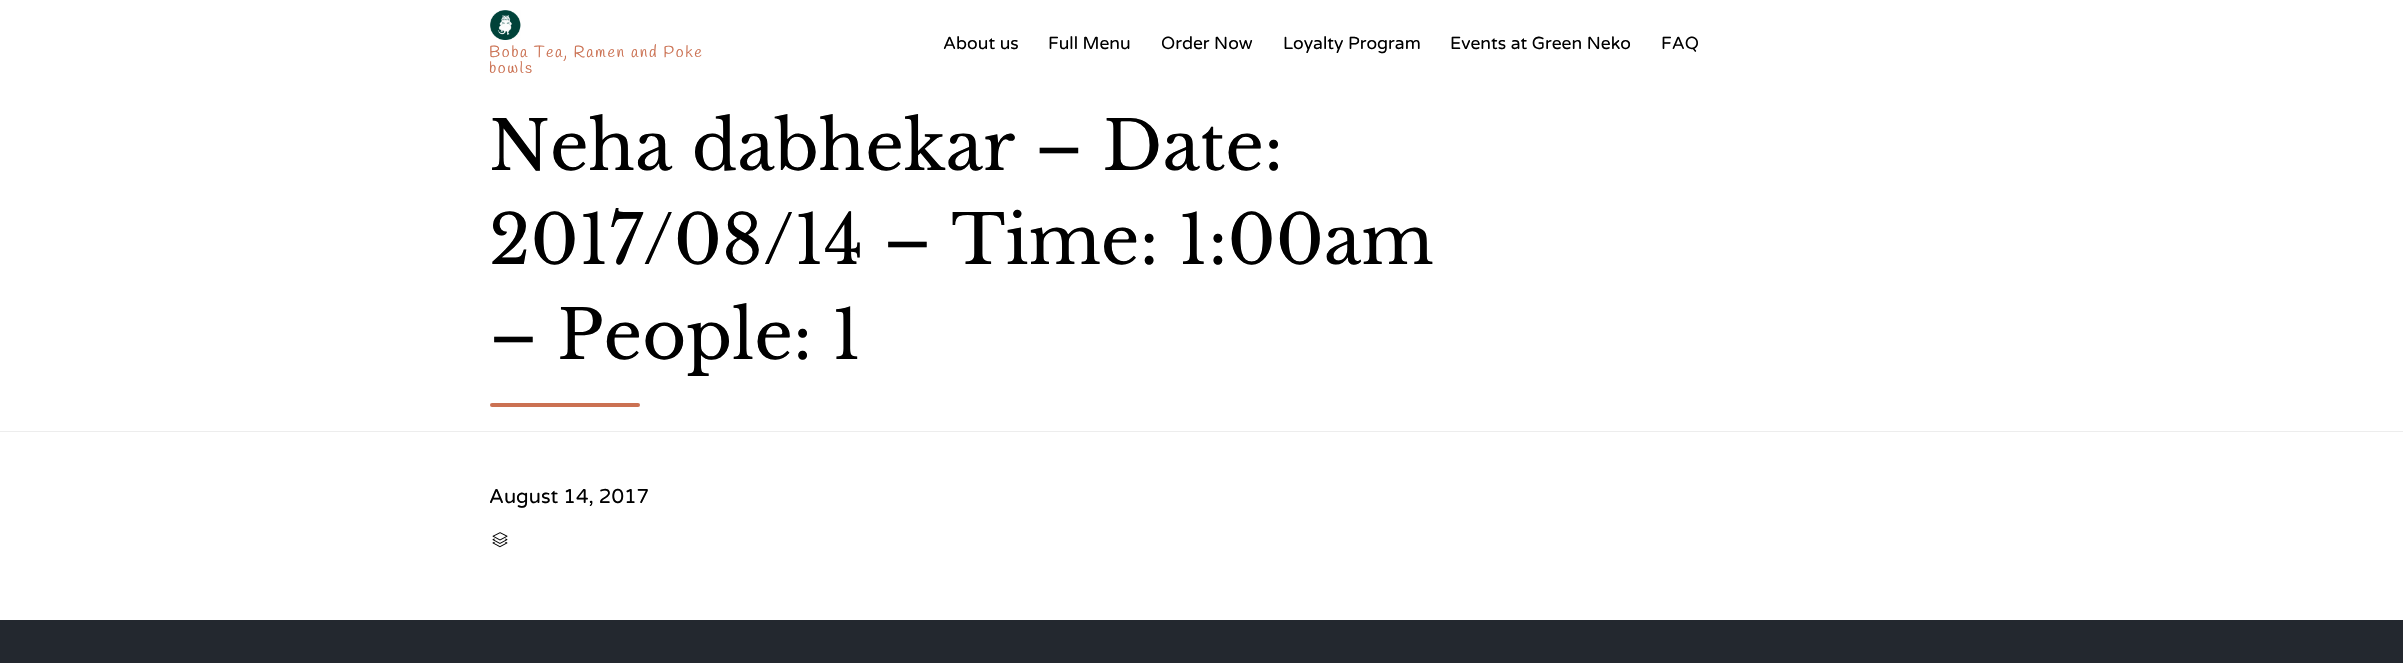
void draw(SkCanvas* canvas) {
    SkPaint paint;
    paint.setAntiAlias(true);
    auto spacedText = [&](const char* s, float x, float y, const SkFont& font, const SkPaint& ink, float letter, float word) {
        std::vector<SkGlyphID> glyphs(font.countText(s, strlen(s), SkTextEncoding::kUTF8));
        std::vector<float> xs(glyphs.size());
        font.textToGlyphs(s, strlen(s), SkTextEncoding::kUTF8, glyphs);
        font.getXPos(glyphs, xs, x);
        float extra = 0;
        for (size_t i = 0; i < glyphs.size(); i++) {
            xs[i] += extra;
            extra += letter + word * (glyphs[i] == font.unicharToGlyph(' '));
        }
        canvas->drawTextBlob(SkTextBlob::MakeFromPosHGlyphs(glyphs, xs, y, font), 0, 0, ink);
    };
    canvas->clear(0xFFFFFFFF);
    canvas->drawImageRect(SkImages::DeferredFromEncodedData(SkData::MakeFromFileName("img1.png")), SkRect::MakeXYWH(490, 10, 31, 30), SkSamplingOptions());
    SkFont font1(fontMgr->matchFamilyStyle("Handlee", SkFontStyle::Normal()), 16);
    font1.setSubpixel(true);
    paint.setColor(0xFFCB7152);
    spacedText("Boba Tea, Ramen and Poke", 489, 57, font1, paint, 1.6f, 0);
    spacedText("bowls", 489, 73, font1, paint, 1.6f, 0);
    SkFont font2(fontMgr->matchFamilyStyle("Varela Round", SkFontStyle::Normal()), 17.5f);
    font2.setSubpixel(true);
    paint.setColor(0xFF000000);
    canvas->drawString("About us", 943, 49, font2, paint);
    canvas->drawString("Full Menu", 1048, 49, font2, paint);
    canvas->drawString("Order Now", 1161, 49, font2, paint);
    canvas->drawString("Loyalty Program", 1283, 49, font2, paint);
    canvas->drawString("Events at Green Neko", 1450, 49, font2, paint);
    canvas->drawString("FAQ", 1661, 49, font2, paint);
    paint.setColor(0xFFEDEDED);
    canvas->drawRect(SkRect::MakeXYWH(0, 431, 2403, 1), paint);
    SkFont font3(fontMgr->matchFamilyStyle("Libre Baskerville", SkFontStyle::Normal()), 67.5f);
    font3.setSubpixel(true);
    paint.setColor(0xFF000000);
    canvas->drawString("Neha dabhekar – Date:", 489, 170, font3, paint);
    canvas->drawString("2017/08/14 – Time: 1:00am", 489, 264, font3, paint);
    canvas->drawString("– People: 1", 489, 359, font3, paint);
    paint.setColor(0xFFCB7152);
    canvas->drawRoundRect(SkRect::MakeXYWH(490, 403, 150, 4), 2, 2, paint);
    SkFont font4(fontMgr->matchFamilyStyle("Varela Round", SkFontStyle::Normal()), 20);
    font4.setSubpixel(true);
    paint.setColor(0xFF000000);
    canvas->drawString("August 14, 2017", 489, 503, font4, paint);
    canvas->drawImageRect(SkImages::DeferredFromEncodedData(SkData::MakeFromFileName("img2.png")), SkRect::MakeXYWH(492, 532, 16, 16), SkSamplingOptions());
    paint.setColor(0xFF23282F);
    canvas->drawRect(SkRect::MakeXYWH(0, 620, 2403, 43), paint);
}
